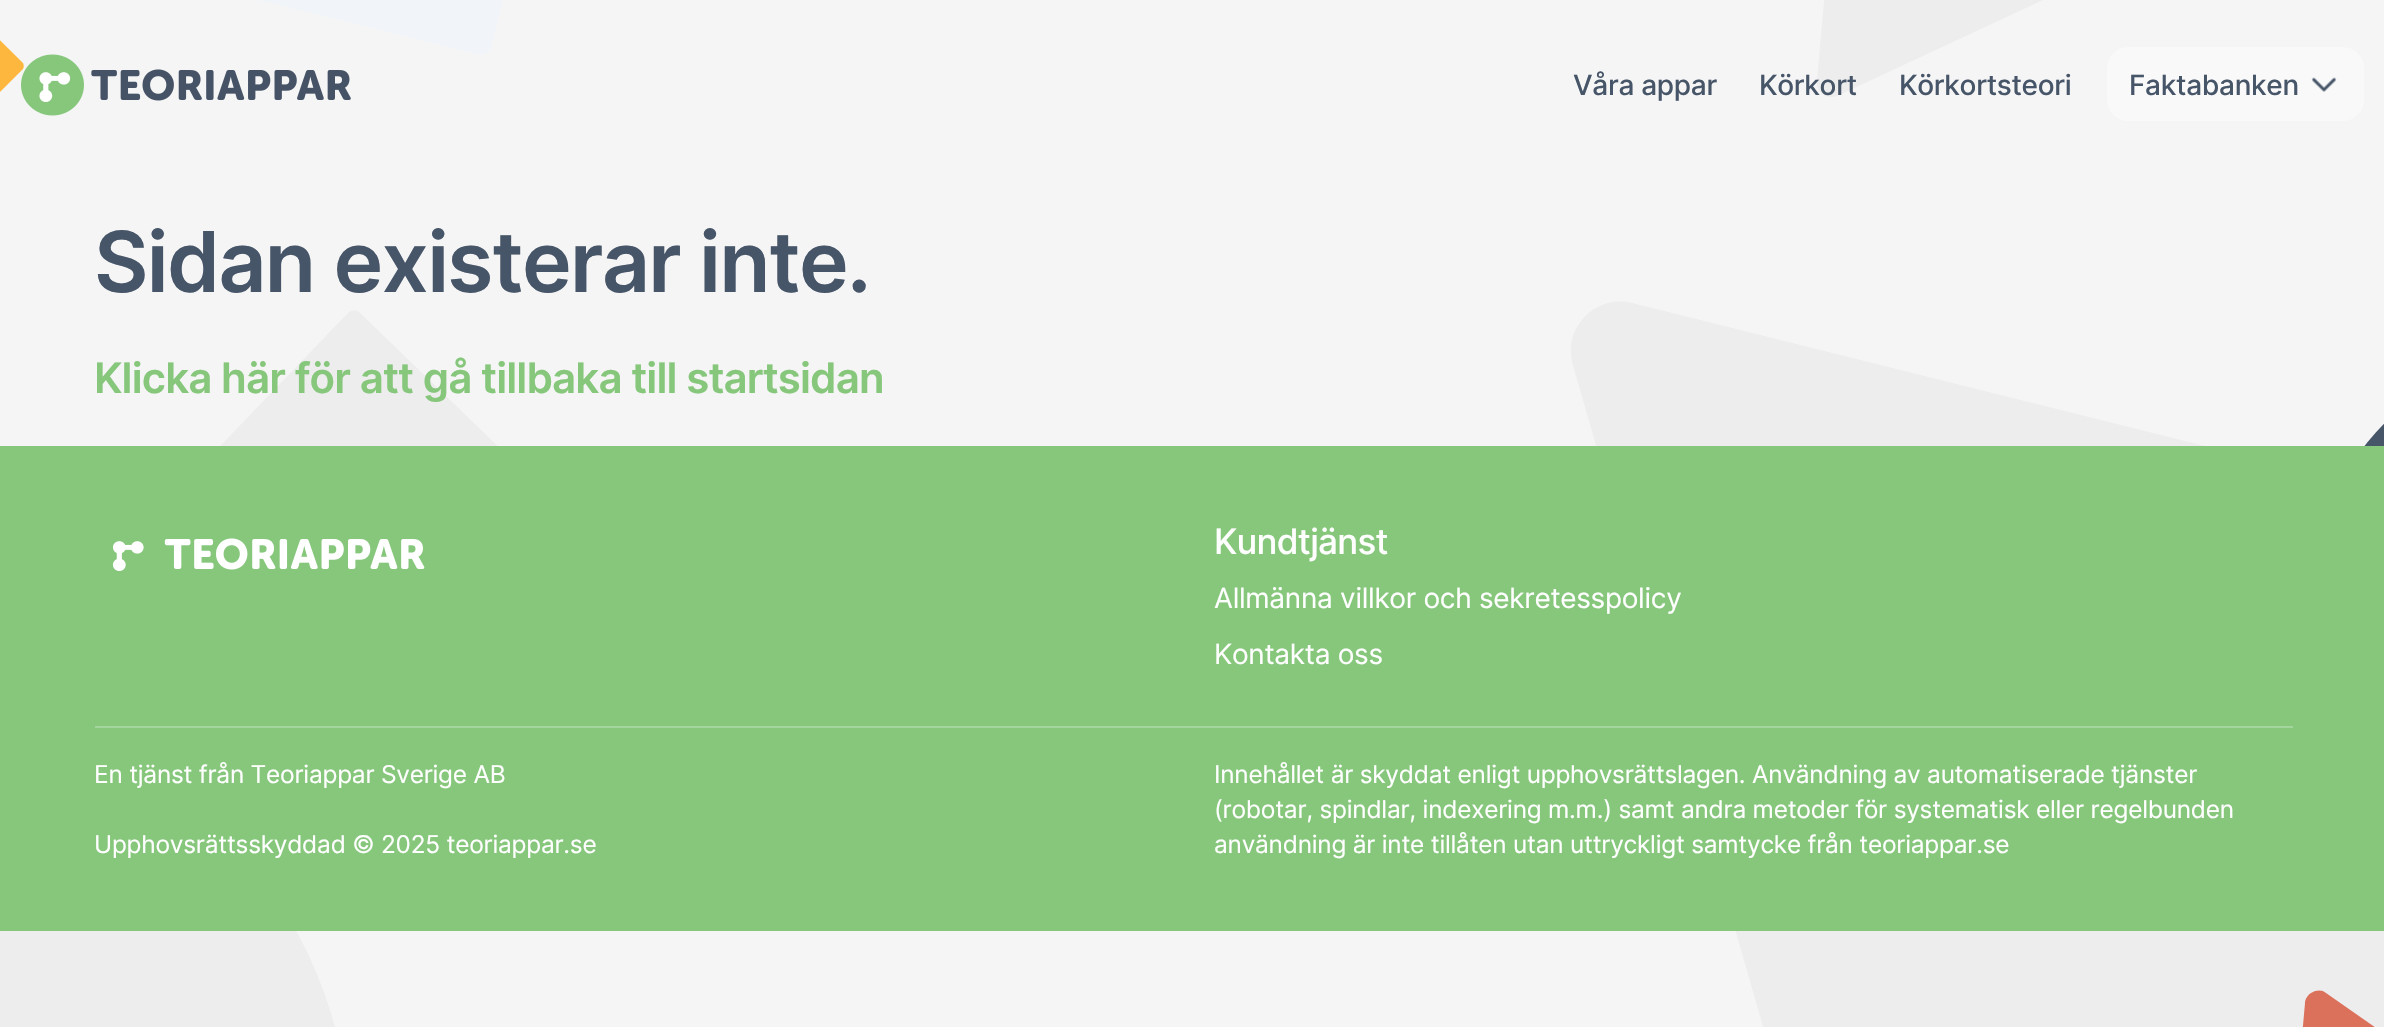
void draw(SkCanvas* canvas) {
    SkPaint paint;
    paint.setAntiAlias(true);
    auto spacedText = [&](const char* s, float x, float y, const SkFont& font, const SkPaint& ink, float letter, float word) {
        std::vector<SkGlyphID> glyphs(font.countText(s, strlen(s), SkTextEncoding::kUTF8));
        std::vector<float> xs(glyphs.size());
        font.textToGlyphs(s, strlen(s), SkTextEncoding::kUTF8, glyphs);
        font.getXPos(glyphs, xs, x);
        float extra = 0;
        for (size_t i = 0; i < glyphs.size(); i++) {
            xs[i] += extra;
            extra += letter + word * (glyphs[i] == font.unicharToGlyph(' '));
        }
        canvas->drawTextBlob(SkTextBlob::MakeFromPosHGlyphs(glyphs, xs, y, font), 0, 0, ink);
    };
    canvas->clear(0xFFF5F5F5);
    paint.setColor(0xFFFDB73E);
    canvas->drawPath(SkPathBuilder().moveTo(-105, -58).cubicTo(-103, -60, -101, -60, -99, -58).lineTo(23, 63).cubicTo(24, 65, 24, 67, 23, 69).lineTo(-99, 191).cubicTo(-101, 192, -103, 192, -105, 191).lineTo(-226, 69).cubicTo(-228, 67, -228, 65, -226, 63).close().detach(), paint);
    paint.setColor(0xFFF1F5F9);
    canvas->drawPath(SkPathBuilder().moveTo(511, -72).cubicTo(516, -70, 518, -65, 518, -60).lineTo(491, 47).cubicTo(489, 52, 485, 55, 480, 55).lineTo(181, -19).cubicTo(176, -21, 173, -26, 173, -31).lineTo(200, -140).cubicTo(203, -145, 208, -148, 214, -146).close().detach(), paint);
    paint.setColor(0xFFEDEDED);
    canvas->drawPath(SkPathBuilder().moveTo(1851, -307).cubicTo(1852, -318, 1864, -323, 1873, -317).lineTo(2193, -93).cubicTo(2201, -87, 2200, -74, 2191, -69).lineTo(1837, 96).cubicTo(1827, 100, 1816, 92, 1817, 82).close().detach(), paint);
    canvas->drawImageRect(SkImages::DeferredFromEncodedData(SkData::MakeFromFileName("img1.png")), SkRect::MakeXYWH(21, 54, 330, 62), SkSamplingOptions());
    SkFont font1(fontMgr->matchFamilyStyle("Inter", SkFontStyle(500, SkFontStyle::kNormal_Width, SkFontStyle::kUpright_Slant)), 28);
    font1.setSubpixel(true);
    paint.setColor(0xFF475569);
    spacedText("Våra appar", 1573, 95, font1, paint, -0.3f, 0);
    spacedText("Körkort", 1759, 95, font1, paint, -0.3f, 0);
    spacedText("Körkortsteori", 1899, 95, font1, paint, -0.3f, 0);
    paint.setColor(0xFFF9F9F9);
    canvas->drawRoundRect(SkRect::MakeXYWH(2107, 47, 257, 74), 21, 21, paint);
    paint.setColor(0xFF475569);
    spacedText("Faktabanken", 2129, 95, font1, paint, -0.3f, 0);
    canvas->drawImageRect(SkImages::DeferredFromEncodedData(SkData::MakeFromFileName("img2.png")), SkRect::MakeXYWH(2311, 77, 26, 15), SkSamplingOptions());
    SkFont font2(fontMgr->matchFamilyStyle("Inter", SkFontStyle(600, SkFontStyle::kNormal_Width, SkFontStyle::kUpright_Slant)), 84);
    font2.setSubpixel(true);
    spacedText("Sidan existerar inte.", 94, 292, font2, paint, -1.7f, 0);
    paint.setColor(0xFFEDEDED);
    canvas->drawPath(SkPathBuilder().moveTo(511, 467).lineTo(365, 619).cubicTo(361, 621, 357, 621, 354, 618).lineTo(205, 474).cubicTo(202, 471, 201, 468, 203, 464).lineTo(349, 312).cubicTo(353, 310, 357, 310, 360, 313).lineTo(509, 457).cubicTo(512, 460, 513, 463, 511, 467).close().detach(), paint);
    SkFont font3(fontMgr->matchFamilyStyle("Inter", SkFontStyle(600, SkFontStyle::kNormal_Width, SkFontStyle::kUpright_Slant)), 42);
    font3.setSubpixel(true);
    paint.setColor(0xFF86C77C);
    spacedText("Klicka här för att gå tillbaka till startsidan", 94, 393, font3, paint, -0.85f, 0);
    paint.setColor(0xFFEDEDED);
    canvas->drawPath(SkPathBuilder().moveTo(2035, 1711).cubicTo(2008, 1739, 1964, 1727, 1954, 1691).lineTo(1573, 365).cubicTo(1562, 329, 1595, 294, 1632, 303).lineTo(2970, 637).cubicTo(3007, 646, 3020, 692, 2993, 719).close().detach(), paint);
    paint.setColor(0xFF475569);
    canvas->drawCircle(2592, 626.5f, 290.5f, paint);
    paint.setColor(0xFFEDEDED);
    canvas->drawCircle(-87.5f, 1141, 437.5f, paint);
    paint.setColor(0xFF86C77C);
    canvas->drawRect(SkRect::MakeXYWH(0, 446, 2384, 485), paint);
    canvas->drawImageRect(SkImages::DeferredFromEncodedData(SkData::MakeFromFileName("img3.png")), SkRect::MakeXYWH(112, 538, 313, 33), SkSamplingOptions());
    SkFont font4(fontMgr->matchFamilyStyle("Inter", SkFontStyle(500, SkFontStyle::kNormal_Width, SkFontStyle::kUpright_Slant)), 35);
    font4.setSubpixel(true);
    paint.setColor(0xFFFFFFFF);
    spacedText("Kundtjänst", 1214, 554, font4, paint, -0.75f, 0);
    SkFont font5(fontMgr->matchFamilyStyle("Inter", SkFontStyle::Normal()), 28);
    font5.setSubpixel(true);
    spacedText("Allmänna villkor och sekretesspolicy", 1214, 608, font5, paint, -0.3f, 0);
    spacedText("Kontakta oss", 1214, 664, font5, paint, -0.3f, 0);
    paint.setColor(0xFFA4D59D);
    canvas->drawRect(SkRect::MakeXYWH(95, 726, 2198, 2), paint);
    SkFont font6(fontMgr->matchFamilyStyle("Inter", SkFontStyle::Normal()), 24.5f);
    font6.setSubpixel(true);
    paint.setColor(0xFFFFFFFF);
    spacedText("En tjänst från Teoriappar Sverige AB", 94, 783, font6, paint, -0.25f, 0);
    spacedText("Upphovsrättsskyddad © 2025 teoriappar.se", 94, 853, font6, paint, -0.25f, 0);
    spacedText("Innehållet är skyddat enligt upphovsrättslagen. Användning av automatiserade tjänster", 1214, 783, font6, paint, -0.25f, 0);
    spacedText("(robotar, spindlar, indexering m.m.) samt andra metoder för systematisk eller regelbunden", 1214, 818, font6, paint, -0.25f, 0);
    spacedText("användning är inte tillåten utan uttryckligt samtycke från teoriappar.se", 1214, 853, font6, paint, -0.25f, 0);
    paint.setColor(0xFFDB705B);
    canvas->drawPath(SkPathBuilder().moveTo(2305, 1003).cubicTo(2305, 999, 2308, 995, 2311, 993).lineTo(2315, 991).cubicTo(2319, 990, 2323, 990, 2326, 993).lineTo(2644, 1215).cubicTo(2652, 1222, 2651, 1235, 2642, 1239).lineTo(2291, 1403).cubicTo(2284, 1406, 2277, 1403, 2273, 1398).lineTo(2271, 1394).lineTo(2271, 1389).close().detach(), paint);
}
